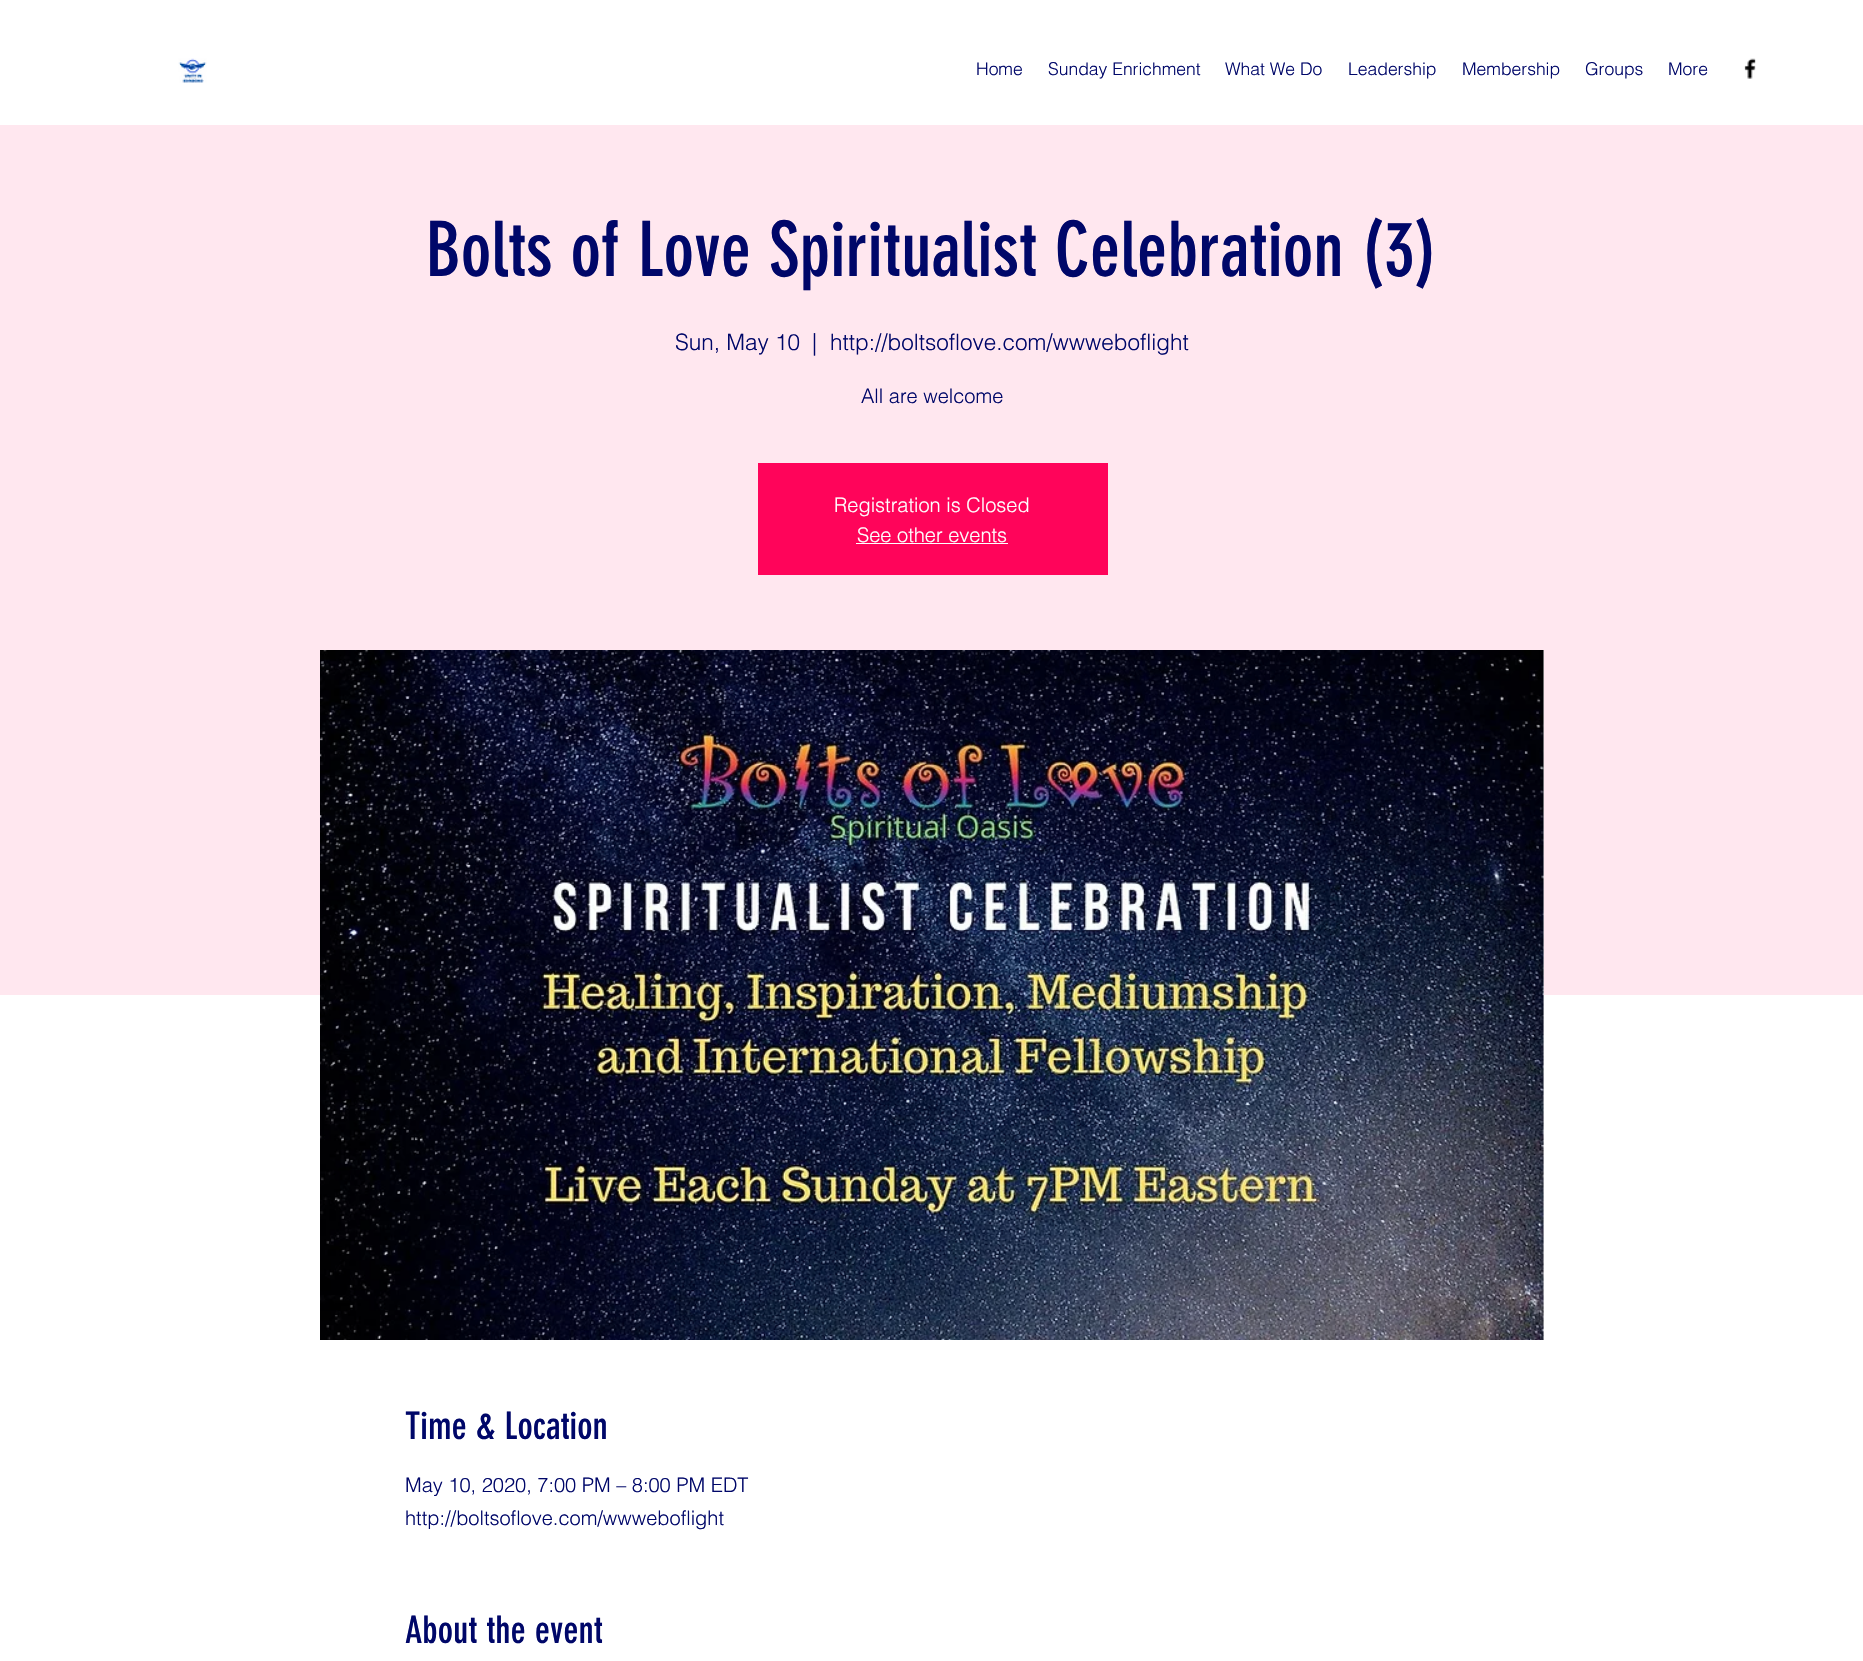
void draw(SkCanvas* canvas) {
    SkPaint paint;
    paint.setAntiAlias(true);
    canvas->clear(0xFFFFFFFF);
    canvas->drawImageRect(SkImages::DeferredFromEncodedData(SkData::MakeFromFileName("img1.png")), SkRect::MakeXYWH(178, 58, 29, 25), SkSamplingOptions());
    SkFont font1(fontMgr->matchFamilyStyle("helvetica", SkFontStyle(300, SkFontStyle::kNormal_Width, SkFontStyle::kUpright_Slant)), 17.5f);
    font1.setSubpixel(true);
    paint.setColor(0xFF000769);
    canvas->drawString("Home", 976, 75, font1, paint);
    canvas->drawString("Sunday Enrichment", 1048, 75, font1, paint);
    canvas->drawString("What We Do", 1225, 75, font1, paint);
    canvas->drawString("Leadership", 1348, 75, font1, paint);
    canvas->drawString("Membership", 1462, 75, font1, paint);
    canvas->drawString("Groups", 1585, 75, font1, paint);
    canvas->drawString("More", 1668, 75, font1, paint);
    canvas->drawImageRect(SkImages::DeferredFromEncodedData(SkData::MakeFromFileName("img2.png")), SkRect::MakeXYWH(1744, 58, 12, 21), SkSamplingOptions());
    paint.setColor(0xFFFFE7EF);
    canvas->drawRect(SkRect::MakeXYWH(0, 125, 1863, 870), paint);
    SkFont font2(fontMgr->matchFamilyStyle("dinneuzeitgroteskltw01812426", SkFontStyle::Normal()), 75);
    font2.setSubpixel(true);
    paint.setColor(0xFF000769);
    canvas->drawString("Bolts of Love Spiritualist Celebration (3)", 426, 276, font2, paint);
    SkFont font3(fontMgr->matchFamilyStyle("helvetica", SkFontStyle(300, SkFontStyle::kNormal_Width, SkFontStyle::kUpright_Slant)), 22.5f);
    font3.setSubpixel(true);
    canvas->drawString("Sun, May 10", 675, 350, font3, paint);
    canvas->drawString("|", 812, 350, font3, paint);
    canvas->drawString("http://boltsoflove.com/wwweboflight", 830, 350, font3, paint);
    SkFont font4(fontMgr->matchFamilyStyle("helvetica", SkFontStyle(300, SkFontStyle::kNormal_Width, SkFontStyle::kUpright_Slant)), 20);
    font4.setSubpixel(true);
    canvas->drawString("All are welcome", 861, 403, font4, paint);
    paint.setColor(0xFFFF045A);
    canvas->drawRect(SkRect::MakeXYWH(758, 463, 350, 112), paint);
    paint.setColor(0xFFFFFFFF);
    canvas->drawString("Registration is Closed", 834, 512, font4, paint);
    canvas->drawString("See other events", 857, 542, font4, paint);
    canvas->drawRect(SkRect::MakeXYWH(856, 543, 152, 1), paint);
    canvas->drawRect(SkRect::MakeXYWH(1543, 650, 1, 345), paint);
    canvas->drawImageRect(SkImages::DeferredFromEncodedData(SkData::MakeFromFileName("img3.png")), SkRect::MakeXYWH(320, 650, 1224, 690), SkSamplingOptions());
    SkFont font5(fontMgr->matchFamilyStyle("dinneuzeitgroteskltw01812426", SkFontStyle::Normal()), 37.5f);
    font5.setSubpixel(true);
    paint.setColor(0xFF000769);
    canvas->drawString("Time & Location", 405, 1439, font5, paint);
    canvas->drawString("May 10, 2020, 7:00 PM – 8:00 PM EDT", 405, 1492, font4, paint);
    canvas->drawString("http://boltsoflove.com/wwweboflight", 405, 1525, font4, paint);
    canvas->drawString("About the event", 405, 1643, font5, paint);
}
